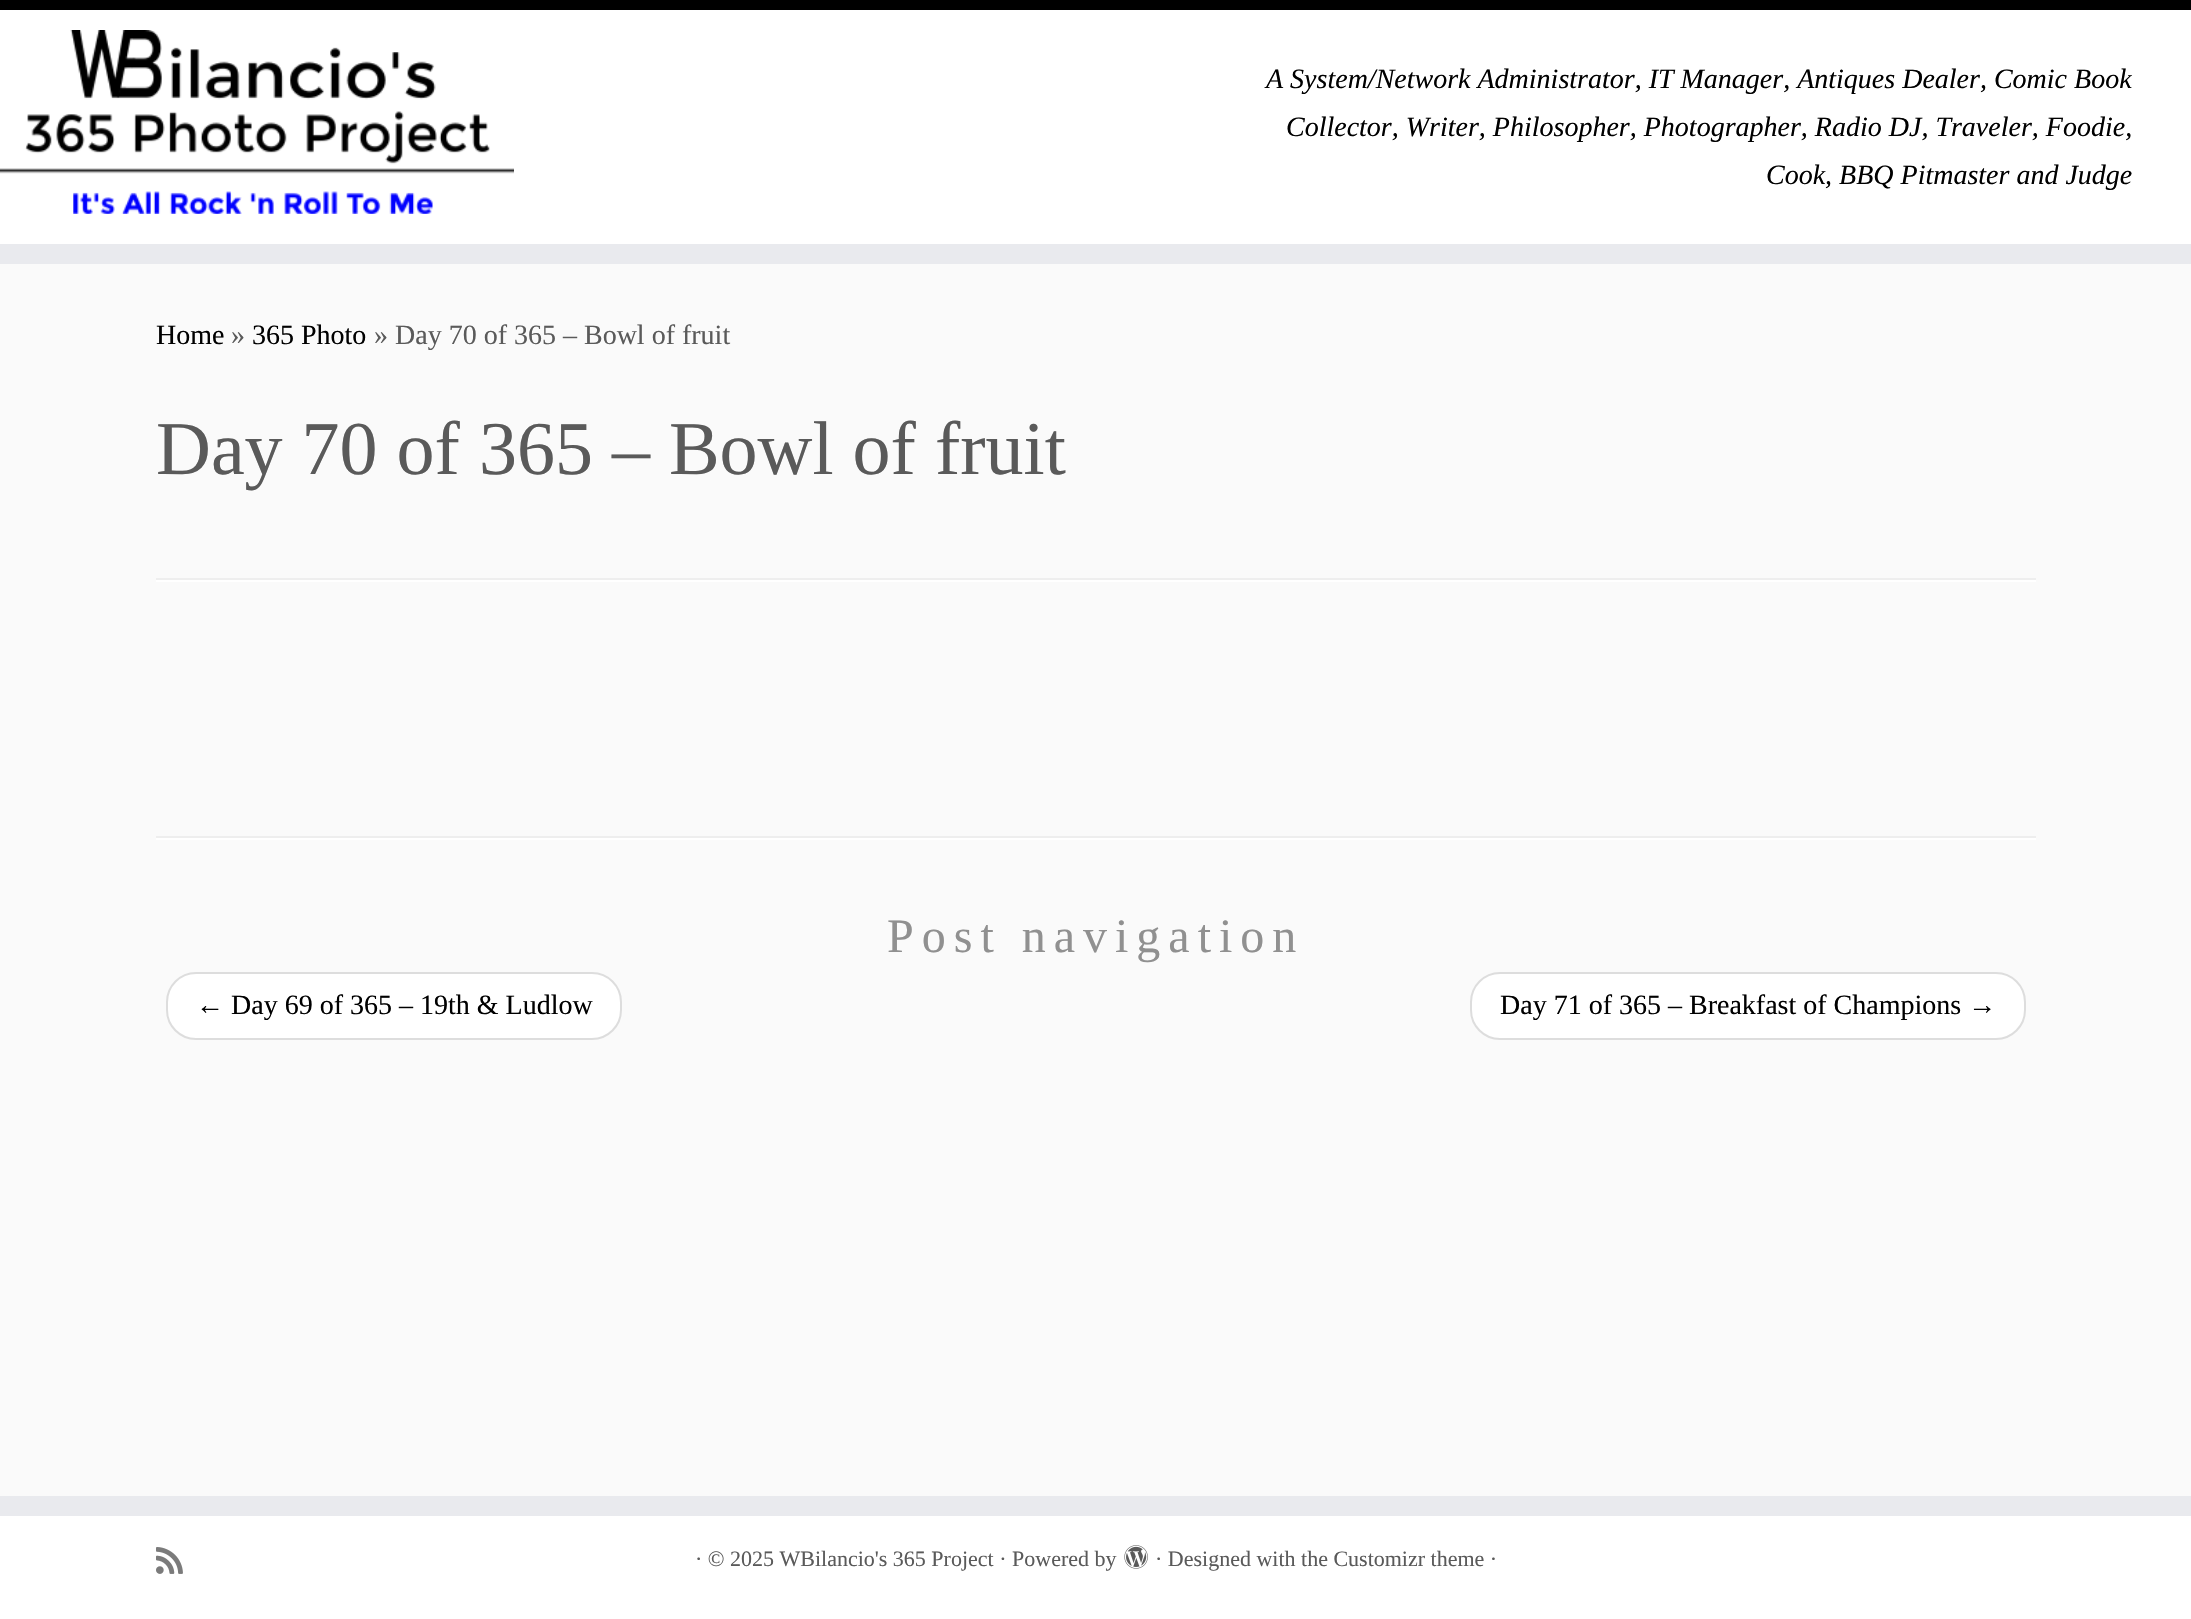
void draw(SkCanvas* canvas) {
    SkPaint paint;
    paint.setAntiAlias(true);
    auto spacedText = [&](const char* s, float x, float y, const SkFont& font, const SkPaint& ink, float letter, float word) {
        std::vector<SkGlyphID> glyphs(font.countText(s, strlen(s), SkTextEncoding::kUTF8));
        std::vector<float> xs(glyphs.size());
        font.textToGlyphs(s, strlen(s), SkTextEncoding::kUTF8, glyphs);
        font.getXPos(glyphs, xs, x);
        float extra = 0;
        for (size_t i = 0; i < glyphs.size(); i++) {
            xs[i] += extra;
            extra += letter + word * (glyphs[i] == font.unicharToGlyph(' '));
        }
        canvas->drawTextBlob(SkTextBlob::MakeFromPosHGlyphs(glyphs, xs, y, font), 0, 0, ink);
    };
    canvas->clear(0xFFFAFAFA);
    paint.setColor(0xFFFFFFFF);
    canvas->drawRect(SkRect::MakeXYWH(0, 10, 2191, 234), paint);
    paint.setColor(0xFF000000);
    canvas->drawRect(SkRect::MakeXYWH(0, 0, 2191, 10), paint);
    paint.setColor(0xFFE9EAEE);
    canvas->drawRect(SkRect::MakeXYWH(0, 244, 2191, 20), paint);
    canvas->drawImageRect(SkImages::DeferredFromEncodedData(SkData::MakeFromFileName("img1.png")), SkRect::MakeXYWH(0, 30, 514, 184), SkSamplingOptions());
    SkFont font1(fontMgr->matchFamilyStyle("Liberation Serif", SkFontStyle::Italic()), 28);
    font1.setSubpixel(true);
    paint.setColor(0xFF000000);
    canvas->drawString("A System/Network Administrator, IT Manager, Antiques Dealer, Comic Book", 1266, 88, font1, paint);
    canvas->drawString("Collector, Writer, Philosopher, Photographer, Radio DJ, Traveler, Foodie,", 1286, 136, font1, paint);
    canvas->drawString("Cook, BBQ Pitmaster and Judge", 1766, 184, font1, paint);
    SkFont font2(fontMgr->matchFamilyStyle("Liberation Serif", SkFontStyle::Normal()), 28);
    font2.setSubpixel(true);
    canvas->drawString("Home", 156, 344, font2, paint);
    paint.setColor(0xFF5A5A5A);
    canvas->drawString("»", 231, 344, font2, paint);
    paint.setColor(0xFF000000);
    canvas->drawString("365 Photo", 252, 344, font2, paint);
    paint.setColor(0xFF5A5A5A);
    canvas->drawString("» Day 70 of 365 – Bowl of fruit", 374, 344, font2, paint);
    SkFont font3(fontMgr->matchFamilyStyle("Liberation Serif", SkFontStyle::Normal()), 76);
    font3.setSubpixel(true);
    canvas->drawString("Day 70 of 365 – Bowl of fruit", 156, 474, font3, paint);
    paint.setColor(0xFFEEEEEE);
    canvas->drawRect(SkRect::MakeXYWH(156, 578, 1880, 2), paint);
    paint.setColor(0xFFFFFFFF);
    canvas->drawRect(SkRect::MakeXYWH(156, 580, 1880, 2), paint);
    paint.setColor(0xFFEEEEEE);
    canvas->drawRect(SkRect::MakeXYWH(156, 836, 1880, 2), paint);
    paint.setColor(0xFFFFFFFF);
    canvas->drawRect(SkRect::MakeXYWH(156, 838, 1880, 2), paint);
    SkFont font4(fontMgr->matchFamilyStyle("Liberation Serif", SkFontStyle::Normal()), 48);
    font4.setSubpixel(true);
    paint.setColor(0xFF909090);
    spacedText("Post navigation", 887, 952, font4, paint, 8, 0);
    paint.setColor(0xFFFFFFFF);
    canvas->drawRoundRect(SkRect::MakeXYWH(167, 973, 454, 66), 29, 29, paint);
    paint.setStyle(SkPaint::kStroke_Style);
    paint.setStrokeWidth(2);
    paint.setColor(0xFFDDDDDD);
    canvas->drawRoundRect(SkRect::MakeXYWH(167, 973, 454, 66), 29, 29, paint);
    paint.setStyle(SkPaint::kFill_Style);
    paint.setColor(0xFF000000);
    canvas->drawString("← Day 69 of 365 – 19th & Ludlow", 196, 1014, font2, paint);
    paint.setColor(0xFFFFFFFF);
    canvas->drawRoundRect(SkRect::MakeXYWH(1471, 973, 554, 66), 29, 29, paint);
    paint.setStyle(SkPaint::kStroke_Style);
    paint.setColor(0xFFDDDDDD);
    canvas->drawRoundRect(SkRect::MakeXYWH(1471, 973, 554, 66), 29, 29, paint);
    paint.setStyle(SkPaint::kFill_Style);
    paint.setColor(0xFF000000);
    canvas->drawString("Day 71 of 365 – Breakfast of Champions →", 1500, 1014, font2, paint);
    paint.setColor(0xFFE9EAEE);
    canvas->drawRect(SkRect::MakeXYWH(0, 1496, 2191, 20), paint);
    paint.setColor(0xFFFFFFFF);
    canvas->drawRect(SkRect::MakeXYWH(0, 1516, 2191, 103), paint);
    canvas->drawImageRect(SkImages::DeferredFromEncodedData(SkData::MakeFromFileName("img2.png")), SkRect::MakeXYWH(156, 1547, 27, 27), SkSamplingOptions());
    SkFont font5(fontMgr->matchFamilyStyle("Liberation Serif", SkFontStyle::Normal()), 22);
    font5.setSubpixel(true);
    paint.setColor(0xFF5A5A5A);
    canvas->drawString("· © 2025 WBilancio's 365 Project · Powered by", 695, 1566, font5, paint);
    canvas->drawImageRect(SkImages::DeferredFromEncodedData(SkData::MakeFromFileName("img3.png")), SkRect::MakeXYWH(1124, 1545, 24, 24), SkSamplingOptions());
    canvas->drawString("· Designed with the Customizr theme ·", 1155, 1566, font5, paint);
}
